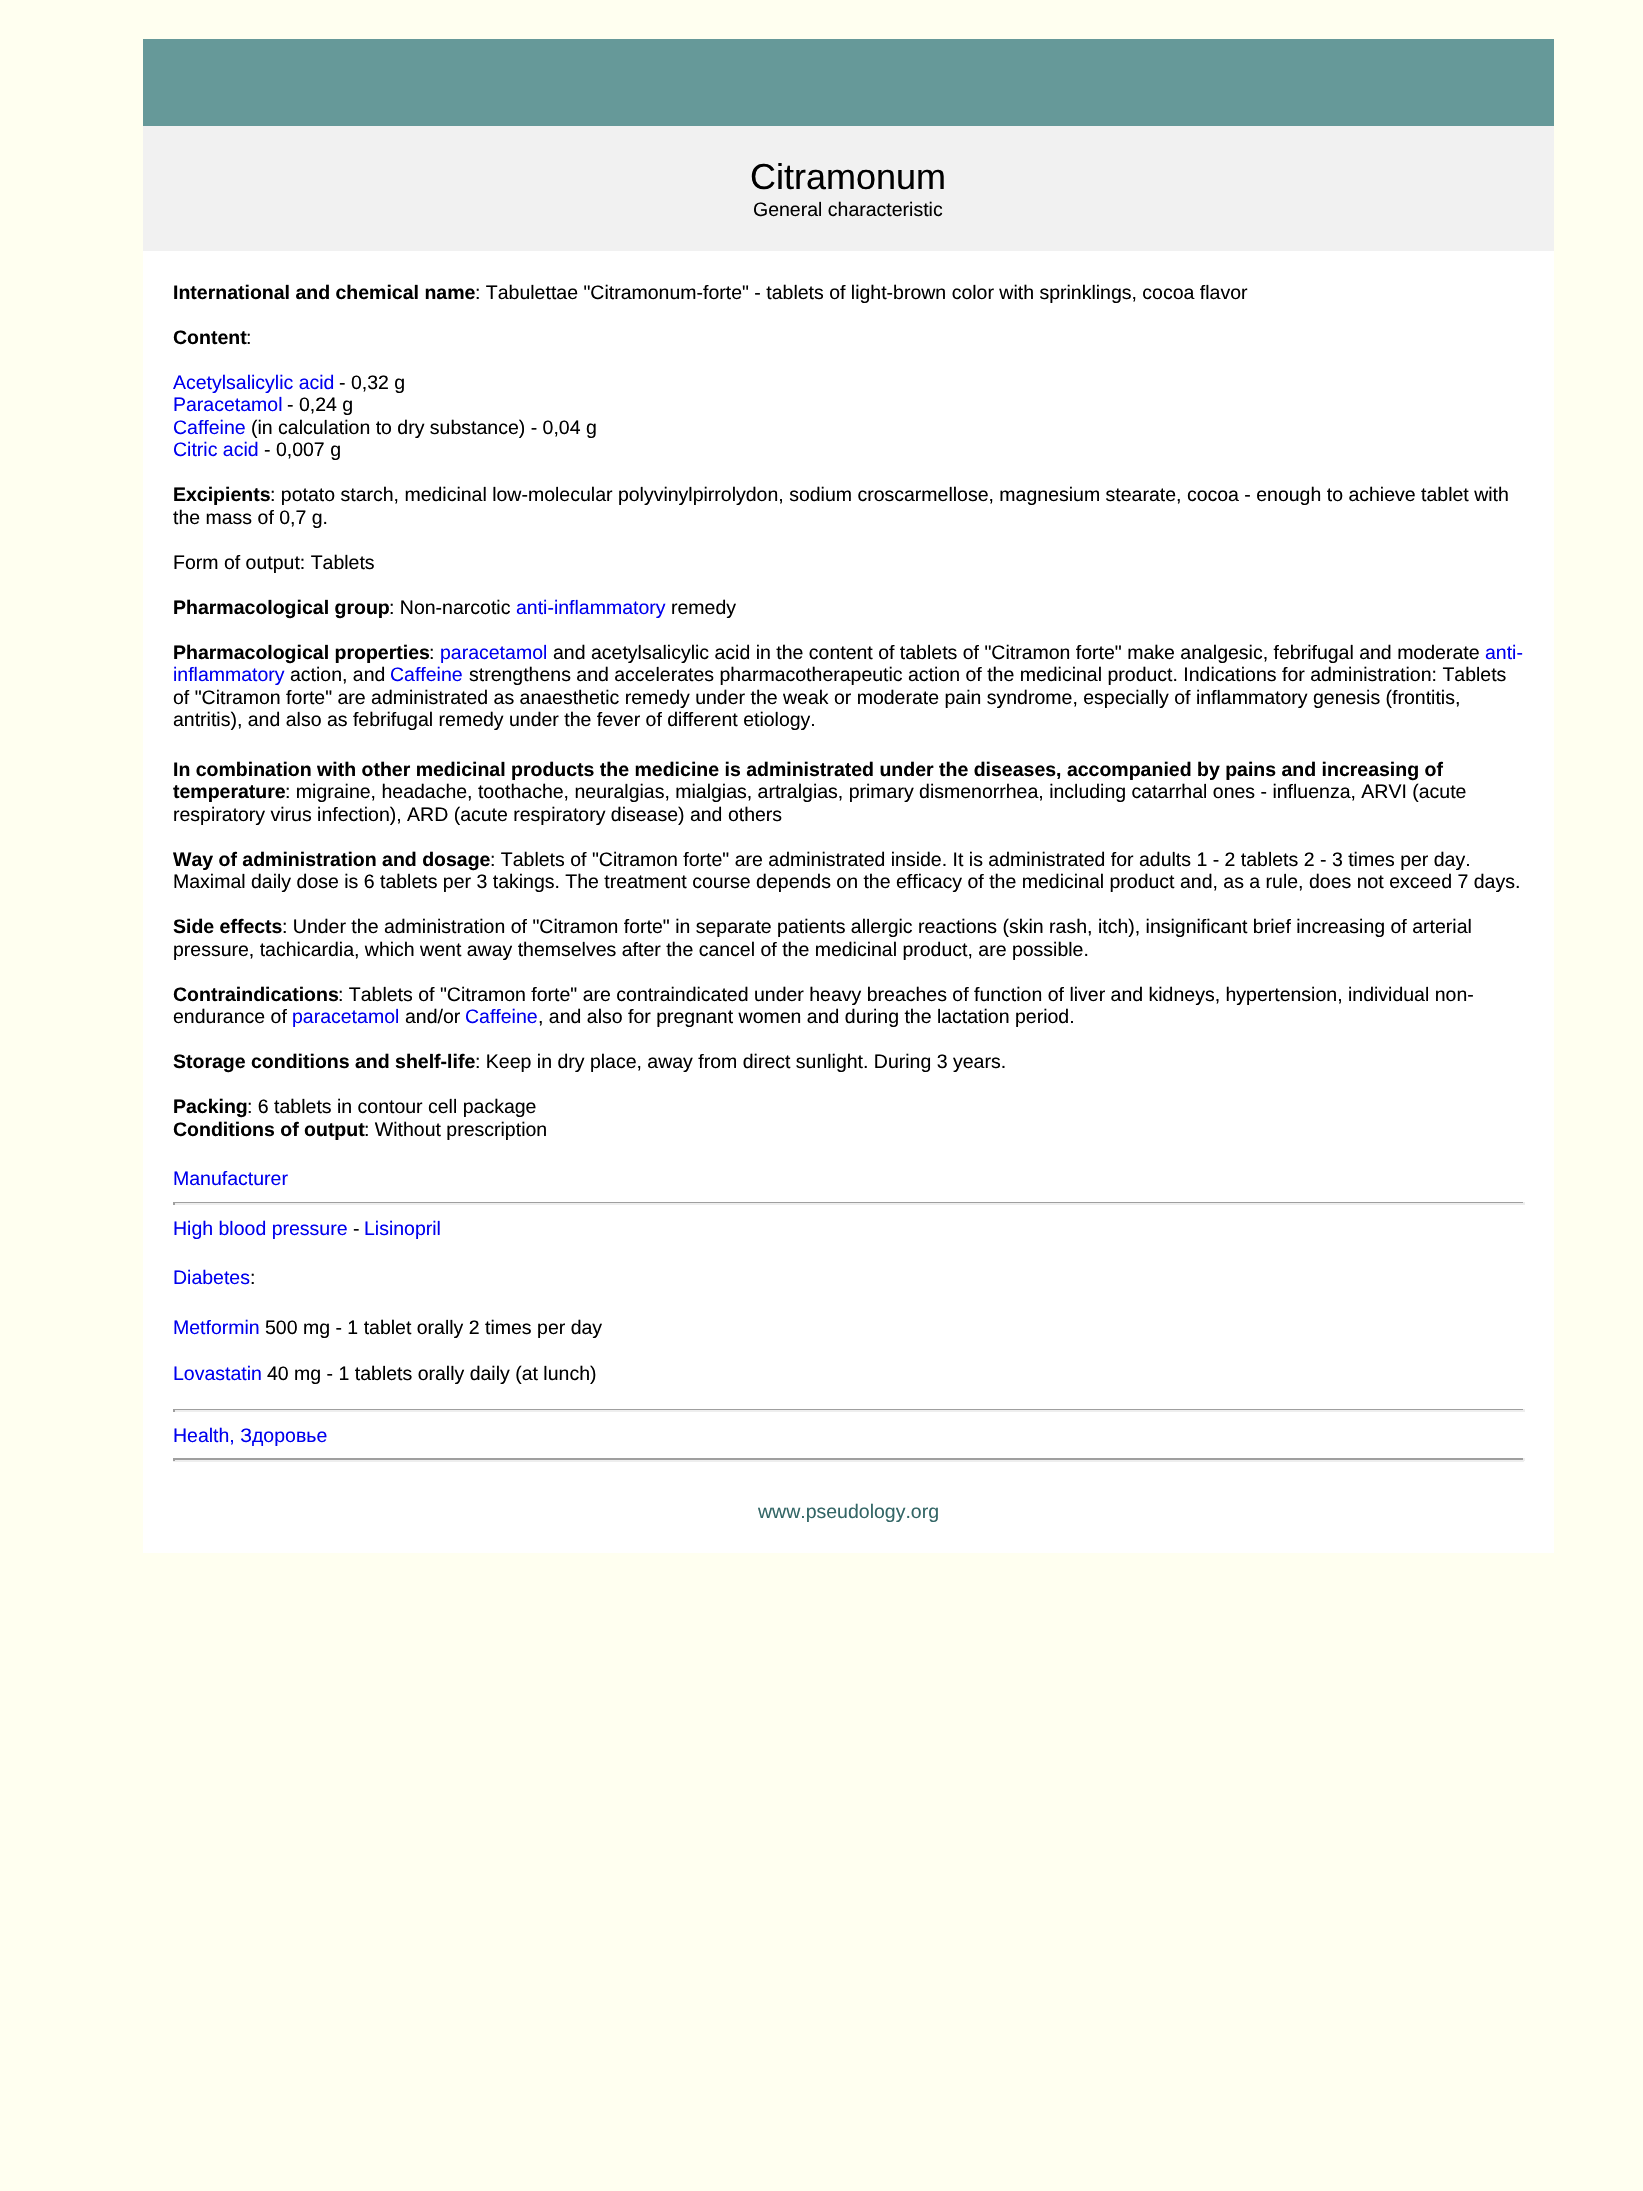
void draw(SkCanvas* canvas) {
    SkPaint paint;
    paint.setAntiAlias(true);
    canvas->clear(0xFFFFFFF0);
    paint.setColor(0xFFFFFFFF);
    canvas->drawRect(SkRect::MakeXYWH(143, 251, 1411, 1302), paint);
    paint.setColor(0xFF669999);
    canvas->drawRect(SkRect::MakeXYWH(143, 39, 1411, 87), paint);
    paint.setColor(0xFFF1F1F1);
    canvas->drawRect(SkRect::MakeXYWH(143, 126, 1411, 125), paint);
    SkFont font1(fontMgr->matchFamilyStyle("Liberation Sans", SkFontStyle::Normal()), 36);
    font1.setSubpixel(true);
    paint.setColor(0xFF000000);
    canvas->drawString("Citramonum", 750, 189, font1, paint);
    SkFont font2(fontMgr->matchFamilyStyle("Liberation Sans", SkFontStyle::Normal()), 19.5f);
    font2.setSubpixel(true);
    canvas->drawString("General characteristic", 753, 216, font2, paint);
    SkFont font3(fontMgr->matchFamilyStyle("Liberation Sans", SkFontStyle::Bold()), 19.5f);
    font3.setSubpixel(true);
    canvas->drawString("International and chemical name", 173, 299, font3, paint);
    canvas->drawString(": Tabulettae \"Citramonum-forte\" - tablets of light-brown color with sprinklings, cocoa flavor", 475, 299, font2, paint);
    canvas->drawString("Content", 173, 344, font3, paint);
    canvas->drawString(":", 246, 344, font2, paint);
    paint.setColor(0xFF0000EE);
    canvas->drawString("Acetylsalicylic acid", 173, 389, font2, paint);
    paint.setColor(0xFF000000);
    canvas->drawString("- 0,32 g", 339, 389, font2, paint);
    paint.setColor(0xFF0000EE);
    canvas->drawString("Paracetamol", 173, 411, font2, paint);
    paint.setColor(0xFF000000);
    canvas->drawString("- 0,24 g", 287, 411, font2, paint);
    paint.setColor(0xFF0000EE);
    canvas->drawString("Caffeine", 173, 434, font2, paint);
    paint.setColor(0xFF000000);
    canvas->drawString("(in calculation to dry substance) - 0,04 g", 251, 434, font2, paint);
    paint.setColor(0xFF0000EE);
    canvas->drawString("Citric acid", 173, 456, font2, paint);
    paint.setColor(0xFF000000);
    canvas->drawString("- 0,007 g", 264, 456, font2, paint);
    canvas->drawString("Excipients", 173, 501, font3, paint);
    canvas->drawString(": potato starch, medicinal low-molecular polyvinylpirrolydon, sodium croscarmellose, magnesium stearate, cocoa - enough to achieve tablet with", 270, 501, font2, paint);
    canvas->drawString("the mass of 0,7 g.", 173, 524, font2, paint);
    canvas->drawString("Form of output: Tablets", 173, 569, font2, paint);
    canvas->drawString("Pharmacological group", 173, 614, font3, paint);
    canvas->drawString(": Non-narcotic", 389, 614, font2, paint);
    paint.setColor(0xFF0000EE);
    canvas->drawString("anti-inflammatory", 516, 614, font2, paint);
    paint.setColor(0xFF000000);
    canvas->drawString("remedy", 671, 614, font2, paint);
    canvas->drawString("Pharmacological properties", 173, 659, font3, paint);
    canvas->drawString(":", 429, 659, font2, paint);
    paint.setColor(0xFF0000EE);
    canvas->drawString("paracetamol", 440, 659, font2, paint);
    paint.setColor(0xFF000000);
    canvas->drawString("and acetylsalicylic acid in the content of tablets of \"Citramon forte\" make analgesic, febrifugal and moderate", 553, 659, font2, paint);
    paint.setColor(0xFF0000EE);
    canvas->drawString("anti-", 1485, 659, font2, paint);
    canvas->drawString("inflammatory", 173, 681, font2, paint);
    paint.setColor(0xFF000000);
    canvas->drawString("action, and", 290, 681, font2, paint);
    paint.setColor(0xFF0000EE);
    canvas->drawString("Caffeine", 390, 681, font2, paint);
    paint.setColor(0xFF000000);
    canvas->drawString("strengthens and accelerates pharmacotherapeutic action of the medicinal product. Indications for administration: Tablets", 469, 681, font2, paint);
    canvas->drawString("of \"Citramon forte\" are administrated as anaesthetic remedy under the weak or moderate pain syndrome, especially of inflammatory genesis (frontitis,", 173, 704, font2, paint);
    canvas->drawString("antritis), and also as febrifugal remedy under the fever of different etiology.", 173, 726, font2, paint);
    canvas->drawString("In combination with other medicinal products the medicine is administrated under the diseases, accompanied by pains and increasing of", 173, 776, font3, paint);
    canvas->drawString("temperature", 173, 798, font3, paint);
    canvas->drawString(": migraine, headache, toothache, neuralgias, mialgias, artralgias, primary dismenorrhea, including catarrhal ones - influenza, ARVI (acute", 285, 798, font2, paint);
    canvas->drawString("respiratory virus infection), ARD (acute respiratory disease) and others", 173, 821, font2, paint);
    canvas->drawString("Way of administration and dosage", 173, 866, font3, paint);
    canvas->drawString(": Tablets of \"Citramon forte\" are administrated inside. It is administrated for adults 1 - 2 tablets 2 - 3 times per day.", 490, 866, font2, paint);
    canvas->drawString("Maximal daily dose is 6 tablets per 3 takings. The treatment course depends on the efficacy of the medicinal product and, as a rule, does not exceed 7 days.", 173, 888, font2, paint);
    canvas->drawString("Side effects", 173, 933, font3, paint);
    canvas->drawString(": Under the administration of \"Citramon forte\" in separate patients allergic reactions (skin rash, itch), insignificant brief increasing of arterial", 282, 933, font2, paint);
    canvas->drawString("pressure, tachicardia, which went away themselves after the cancel of the medicinal product, are possible.", 173, 956, font2, paint);
    canvas->drawString("Contraindications", 173, 1001, font3, paint);
    canvas->drawString(": Tablets of \"Citramon forte\" are contraindicated under heavy breaches of function of liver and kidneys, hypertension, individual non-", 338, 1001, font2, paint);
    canvas->drawString("endurance of", 173, 1023, font2, paint);
    paint.setColor(0xFF0000EE);
    canvas->drawString("paracetamol", 292, 1023, font2, paint);
    paint.setColor(0xFF000000);
    canvas->drawString("and/or", 405, 1023, font2, paint);
    paint.setColor(0xFF0000EE);
    canvas->drawString("Caffeine", 465, 1023, font2, paint);
    paint.setColor(0xFF000000);
    canvas->drawString(", and also for pregnant women and during the lactation period.", 538, 1023, font2, paint);
    canvas->drawString("Storage conditions and shelf-life", 173, 1068, font3, paint);
    canvas->drawString(": Keep in dry place, away from direct sunlight. During 3 years.", 475, 1068, font2, paint);
    canvas->drawString("Packing", 173, 1113, font3, paint);
    canvas->drawString(": 6 tablets in contour cell package", 247, 1113, font2, paint);
    canvas->drawString("Conditions of output", 173, 1136, font3, paint);
    canvas->drawString(": Without prescription", 364, 1136, font2, paint);
    paint.setColor(0xFF0000EE);
    canvas->drawString("Manufacturer", 173, 1185, font2, paint);
    paint.setColor(0xFF9F9F9F);
    canvas->drawRect(SkRect::MakeXYWH(173, 1202, 1351, 1), paint);
    paint.setColor(0xFFEEEEEE);
    canvas->drawRect(SkRect::MakeXYWH(1523, 1202, 2, 3), paint);
    canvas->drawRect(SkRect::MakeXYWH(173, 1203, 1351, 2), paint);
    paint.setColor(0xFF9F9F9F);
    canvas->drawRect(SkRect::MakeXYWH(173, 1202, 2, 3), paint);
    paint.setColor(0xFF0000EE);
    canvas->drawString("High blood pressure", 173, 1235, font2, paint);
    paint.setColor(0xFF000000);
    canvas->drawString("-", 353, 1235, font2, paint);
    paint.setColor(0xFF0000EE);
    canvas->drawString("Lisinopril", 364, 1235, font2, paint);
    canvas->drawString("Diabetes", 173, 1284, font2, paint);
    paint.setColor(0xFF000000);
    canvas->drawString(":", 250, 1284, font2, paint);
    paint.setColor(0xFF0000EE);
    canvas->drawString("Metformin", 173, 1334, font2, paint);
    paint.setColor(0xFF000000);
    canvas->drawString("500 mg - 1 tablet orally 2 times per day", 265, 1334, font2, paint);
    paint.setColor(0xFF0000EE);
    canvas->drawString("Lovastatin", 173, 1380, font2, paint);
    paint.setColor(0xFF000000);
    canvas->drawString("40 mg - 1 tablets orally daily (at lunch)", 267, 1380, font2, paint);
    paint.setColor(0xFF9F9F9F);
    canvas->drawRect(SkRect::MakeXYWH(173, 1409, 1351, 1), paint);
    paint.setColor(0xFFEEEEEE);
    canvas->drawRect(SkRect::MakeXYWH(1523, 1409, 2, 3), paint);
    canvas->drawRect(SkRect::MakeXYWH(173, 1410, 1351, 2), paint);
    paint.setColor(0xFF9F9F9F);
    canvas->drawRect(SkRect::MakeXYWH(173, 1409, 2, 3), paint);
    paint.setColor(0xFF0000EE);
    canvas->drawString("Health, Здоровье", 173, 1442, font2, paint);
    paint.setColor(0xFF9F9F9F);
    canvas->drawRect(SkRect::MakeXYWH(173, 1458, 1351, 2), paint);
    paint.setColor(0xFFEEEEEE);
    canvas->drawRect(SkRect::MakeXYWH(1523, 1458, 2, 3), paint);
    canvas->drawRect(SkRect::MakeXYWH(173, 1460, 1351, 2), paint);
    paint.setColor(0xFF9F9F9F);
    canvas->drawRect(SkRect::MakeXYWH(173, 1458, 2, 3), paint);
    paint.setColor(0xFF336666);
    canvas->drawString("www.pseudology.org", 758, 1518, font2, paint);
}
